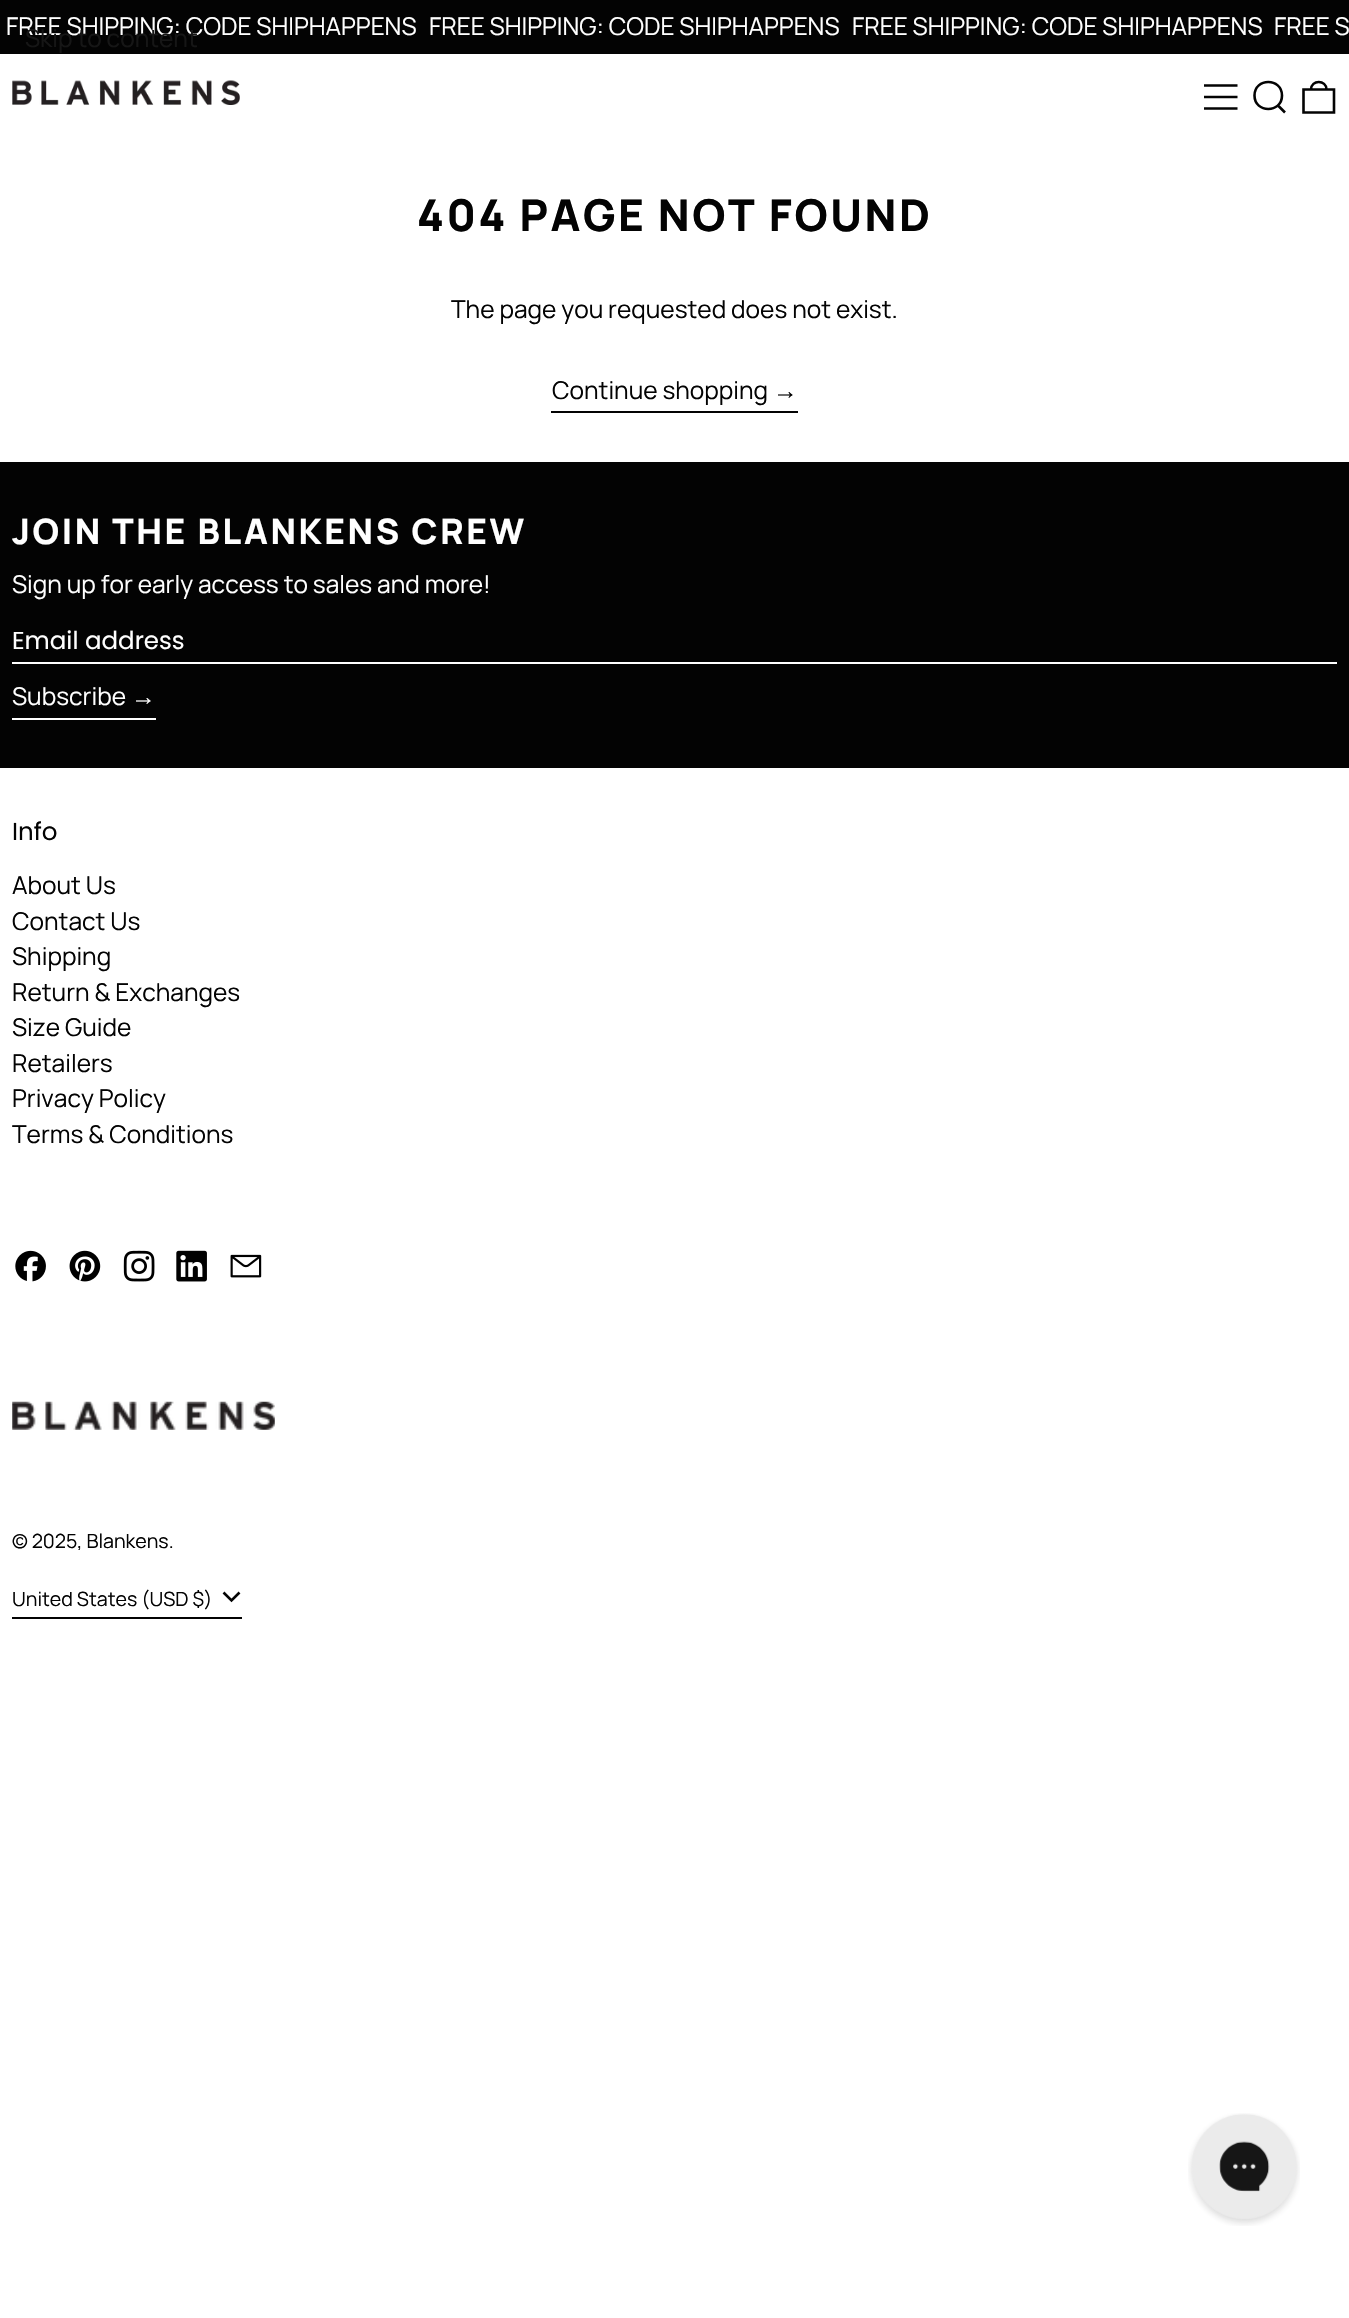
void draw(SkCanvas* canvas) {
    SkPaint paint;
    paint.setAntiAlias(true);
    auto spacedText = [&](const char* s, float x, float y, const SkFont& font, const SkPaint& ink, float letter, float word) {
        std::vector<SkGlyphID> glyphs(font.countText(s, strlen(s), SkTextEncoding::kUTF8));
        std::vector<float> xs(glyphs.size());
        font.textToGlyphs(s, strlen(s), SkTextEncoding::kUTF8, glyphs);
        font.getXPos(glyphs, xs, x);
        float extra = 0;
        for (size_t i = 0; i < glyphs.size(); i++) {
            xs[i] += extra;
            extra += letter + word * (glyphs[i] == font.unicharToGlyph(' '));
        }
        canvas->drawTextBlob(SkTextBlob::MakeFromPosHGlyphs(glyphs, xs, y, font), 0, 0, ink);
    };
    canvas->clear(0xFFFFFFFF);
    paint.setColor(0xFF030303);
    canvas->drawRect(SkRect::MakeXYWH(0, 0, 1349, 54), paint);
    SkFont font1(fontMgr->matchFamilyStyle("Manrope", SkFontStyle::Normal()), 24.5f);
    font1.setSubpixel(true);
    paint.setColor(0xFFFFFFFF);
    canvas->drawString("FREE SHIPPING: CODE SHIPHAPPENS", 6, 35, font1, paint);
    canvas->drawString("FREE SHIPPING: CODE SHIPHAPPENS", 429, 35, font1, paint);
    canvas->drawString("FREE SHIPPING: CODE SHIPHAPPENS", 852, 35, font1, paint);
    canvas->drawString("FREE S", 1274, 35, font1, paint);
    paint.setColor(0xFF161616);
    canvas->drawString("Skip to content", 25, 47, font1, paint);
    canvas->drawImageRect(SkImages::DeferredFromEncodedData(SkData::MakeFromFileName("img1.png")), SkRect::MakeXYWH(12, 80, 228, 25), SkSamplingOptions());
    paint.setStyle(SkPaint::kStroke_Style);
    paint.setStrokeWidth(2.6f);
    paint.setColor(0xFF030303);
    canvas->drawPath(SkPathBuilder().moveTo(1204, 85.5f).lineTo(1237.5f, 85.5f).moveTo(1204, 97).lineTo(1237.5f, 97).moveTo(1204, 108.5f).lineTo(1237.5f, 108.5f).detach(), paint);
    canvas->drawPath(SkPathBuilder().moveTo(1254.5f, 95.5f).cubicTo(1254.5f, 113.5f, 1282, 113.5f, 1282, 95.5f).cubicTo(1282, 77.5f, 1254.5f, 77.5f, 1254.5f, 95.5f).close().moveTo(1278, 105.5f).lineTo(1285, 112.5f).detach(), paint);
    canvas->drawPath(SkPathBuilder().moveTo(1303.5f, 89.5f).lineTo(1334, 89.5f).lineTo(1334, 112.5f).lineTo(1303.5f, 112.5f).close().moveTo(1326.5f, 89.5f).cubicTo(1326.5f, 79.5f, 1311, 79.5f, 1311, 89.5f).detach(), paint);
    SkFont font2(fontMgr->matchFamilyStyle("Manrope", SkFontStyle(200, SkFontStyle::kNormal_Width, SkFontStyle::kUpright_Slant)), 43.75f);
    font2.setSubpixel(true);
    paint.setStyle(SkPaint::kFill_Style);
    spacedText("404 PAGE NOT FOUND", 417, 231, font2, paint, 2.6f, 0);
    canvas->drawString("The page you requested does not exist.", 451, 318, font1, paint);
    canvas->drawRect(SkRect::MakeXYWH(551, 411, 247, 2), paint);
    canvas->drawString("Continue shopping", 552, 399, font1, paint);
    SkFont font3(fontMgr->matchFamilyStyle("Liberation Serif", SkFontStyle::Normal()), 24.5f);
    font3.setSubpixel(true);
    canvas->drawString("→", 773, 399, font3, paint);
    canvas->drawRect(SkRect::MakeXYWH(0, 462, 1349, 306), paint);
    SkFont font4(fontMgr->matchFamilyStyle("Manrope", SkFontStyle(200, SkFontStyle::kNormal_Width, SkFontStyle::kUpright_Slant)), 35);
    font4.setSubpixel(true);
    paint.setColor(0xFFFFFFFF);
    spacedText("JOIN THE BLANKENS CREW", 12, 544, font4, paint, 2.6f, 0);
    canvas->drawString("Sign up for early access to sales and more!", 12, 593, font1, paint);
    canvas->drawRect(SkRect::MakeXYWH(12, 662, 1325, 2), paint);
    SkFont font5(fontMgr->matchFamilyStyle("Poppins", SkFontStyle::Normal()), 24.5f);
    font5.setSubpixel(true);
    canvas->drawString("Email address", 12, 649, font5, paint);
    canvas->drawRect(SkRect::MakeXYWH(12, 718, 144, 2), paint);
    canvas->drawString("Subscribe", 12, 705, font1, paint);
    canvas->drawString("→", 131, 705, font3, paint);
    paint.setColor(0xFF030303);
    canvas->drawString("Info", 12, 840, font5, paint);
    canvas->drawString("About Us", 12, 894, font1, paint);
    canvas->drawString("Contact Us", 12, 930, font1, paint);
    canvas->drawString("Shipping", 12, 965, font1, paint);
    canvas->drawString("Return & Exchanges", 12, 1001, font1, paint);
    canvas->drawString("Size Guide", 12, 1036, font1, paint);
    canvas->drawString("Retailers", 12, 1072, font1, paint);
    canvas->drawString("Privacy Policy", 12, 1107, font1, paint);
    canvas->drawString("Terms & Conditions", 12, 1143, font1, paint);
    canvas->drawImageRect(SkImages::DeferredFromEncodedData(SkData::MakeFromFileName("img2.png")), SkRect::MakeXYWH(15, 1250, 31, 32), SkSamplingOptions());
    canvas->drawImageRect(SkImages::DeferredFromEncodedData(SkData::MakeFromFileName("img3.png")), SkRect::MakeXYWH(69, 1250, 32, 32), SkSamplingOptions());
    canvas->drawImageRect(SkImages::DeferredFromEncodedData(SkData::MakeFromFileName("img4.png")), SkRect::MakeXYWH(123, 1250, 32, 32), SkSamplingOptions());
    canvas->drawImageRect(SkImages::DeferredFromEncodedData(SkData::MakeFromFileName("img5.png")), SkRect::MakeXYWH(176, 1250, 31, 32), SkSamplingOptions());
    canvas->drawImageRect(SkImages::DeferredFromEncodedData(SkData::MakeFromFileName("img6.png")), SkRect::MakeXYWH(230, 1254, 32, 24), SkSamplingOptions());
    canvas->drawImageRect(SkImages::DeferredFromEncodedData(SkData::MakeFromFileName("img7.png")), SkRect::MakeXYWH(12, 1401, 263, 29), SkSamplingOptions());
    SkFont font6(fontMgr->matchFamilyStyle("Manrope", SkFontStyle::Normal()), 19.6f);
    font6.setSubpixel(true);
    canvas->drawString("© 2025, Blankens.", 12, 1548, font6, paint);
    canvas->drawRect(SkRect::MakeXYWH(12, 1617, 230, 2), paint);
    canvas->drawString("United States (USD $)", 12, 1606, font6, paint);
    paint.setStyle(SkPaint::kStroke_Style);
    canvas->drawPath(SkPathBuilder().moveTo(223.5f, 1592.5f).lineTo(231.5f, 1600.5f).lineTo(239.5f, 1592.5f).detach(), paint);
    canvas->drawImageRect(SkImages::DeferredFromEncodedData(SkData::MakeFromFileName("img8.png")), SkRect::MakeXYWH(1188, 2113, 112, 113), SkSamplingOptions());
}
